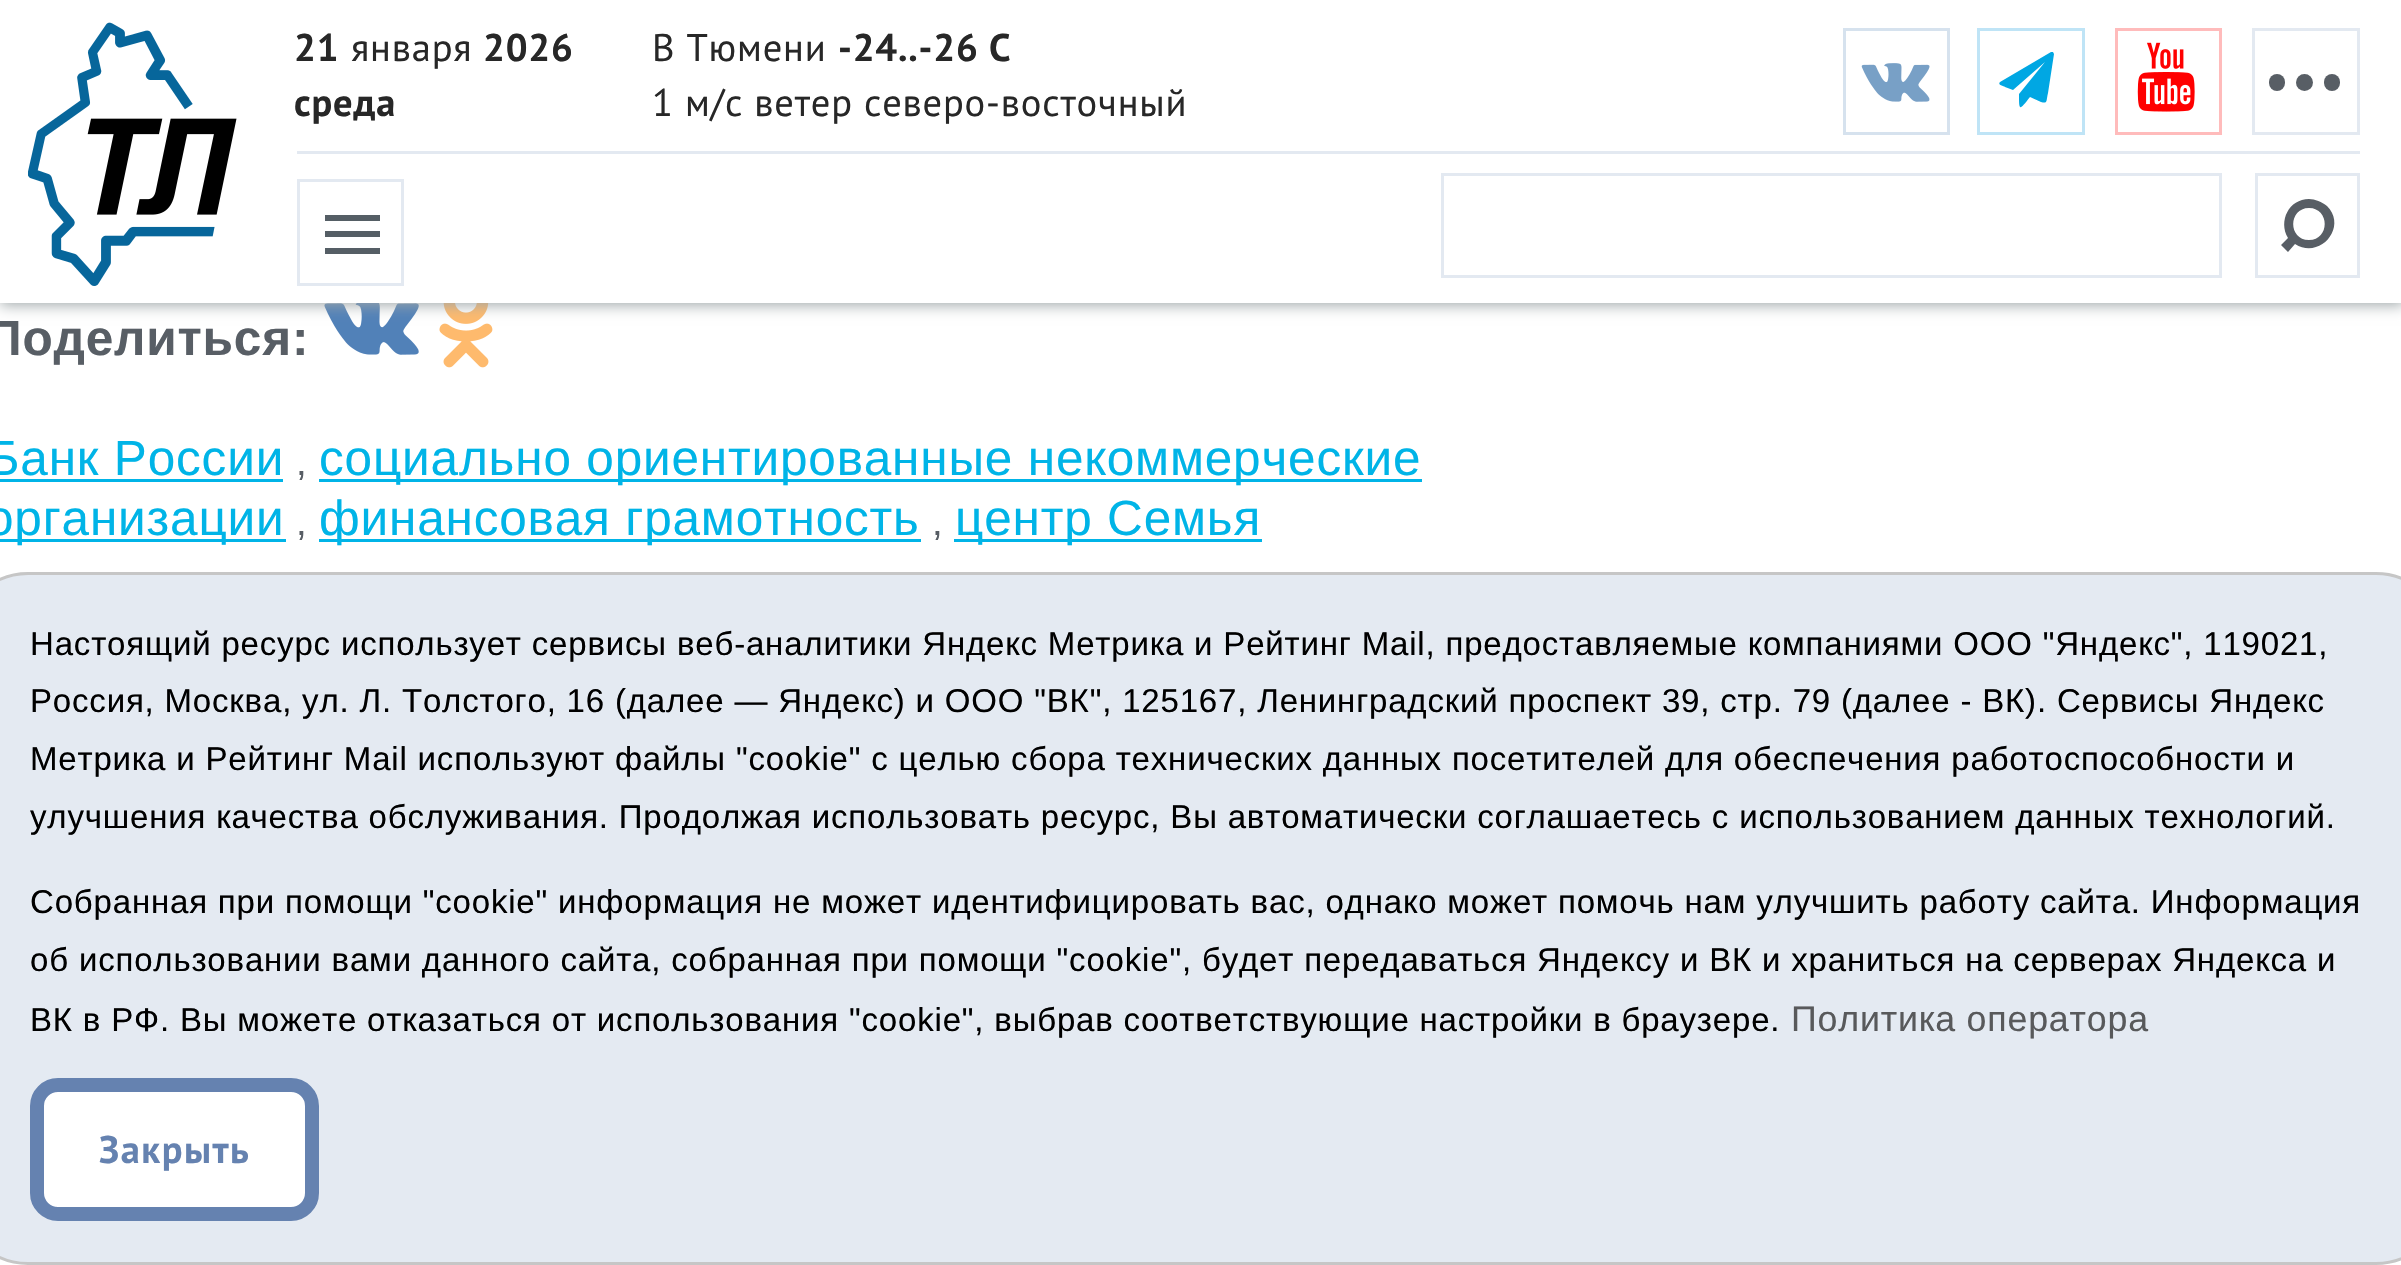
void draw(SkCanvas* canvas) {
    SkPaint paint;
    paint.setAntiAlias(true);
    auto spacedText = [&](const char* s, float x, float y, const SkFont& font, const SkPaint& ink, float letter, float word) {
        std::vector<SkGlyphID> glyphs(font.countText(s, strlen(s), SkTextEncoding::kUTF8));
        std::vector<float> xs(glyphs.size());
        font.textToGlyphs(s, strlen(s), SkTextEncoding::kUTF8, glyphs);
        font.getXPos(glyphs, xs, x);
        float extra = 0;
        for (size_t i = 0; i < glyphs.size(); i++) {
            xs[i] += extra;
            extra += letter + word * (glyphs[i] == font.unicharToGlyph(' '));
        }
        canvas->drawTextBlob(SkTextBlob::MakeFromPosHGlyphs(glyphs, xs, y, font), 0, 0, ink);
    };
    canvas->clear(0xFFFFFFFF);
    canvas->drawImageRect(SkImages::DeferredFromEncodedData(SkData::MakeFromFileName("img4.png")), SkRect::MakeXYWH(324, 303, 95, 52), SkSamplingOptions());
    canvas->drawImageRect(SkImages::DeferredFromEncodedData(SkData::MakeFromFileName("img5.png")), SkRect::MakeXYWH(439, 303, 54, 65), SkSamplingOptions());
    paint.setColor(0xFF9EA6A8);
    paint.setMaskFilter(SkMaskFilter::MakeBlur(kNormal_SkBlurStyle, 7));
    canvas->drawRect(SkRect::MakeXYWH(0, 3, 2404, 302), paint);
    paint.setMaskFilter(nullptr);
    paint.setColor(0xFFFFFFFF);
    canvas->drawRect(SkRect::MakeXYWH(0, 0, 2401, 303), paint);
    canvas->drawImageRect(SkImages::DeferredFromEncodedData(SkData::MakeFromFileName("img1.png")), SkRect::MakeXYWH(28, 22, 209, 264), SkSamplingOptions());
    SkFont font1(fontMgr->matchFamilyStyle("PT Sans", SkFontStyle::Bold()), 38.5f);
    font1.setSubpixel(true);
    paint.setColor(0xFF272727);
    spacedText("21", 294, 61, font1, paint, 0.82f, 0);
    SkFont font2(fontMgr->matchFamilyStyle("PT Sans", SkFontStyle::Normal()), 38.5f);
    font2.setSubpixel(true);
    spacedText("января", 351, 61, font2, paint, 0.82f, 0);
    spacedText("2026", 483, 61, font1, paint, 0.82f, 0);
    spacedText("среда", 294, 116, font1, paint, 0.82f, 0);
    spacedText("В Тюмени", 652, 61, font2, paint, 0.82f, 0);
    spacedText("-24..-26 С", 838, 61, font1, paint, 0.82f, 0);
    spacedText("1 м/с ветер северо-восточный", 652, 116, font2, paint, 0.82f, 0);
    paint.setStyle(SkPaint::kStroke_Style);
    paint.setStrokeWidth(3);
    paint.setColor(0xFFD6E2EE);
    canvas->drawRect(SkRect::MakeXYWH(1844.5f, 29.5f, 104, 104), paint);
    canvas->drawImageRect(SkImages::DeferredFromEncodedData(SkData::MakeFromFileName("img2.png")), SkRect::MakeXYWH(1861, 63, 69, 39), SkSamplingOptions());
    paint.setColor(0xFFBFE4F6);
    canvas->drawRect(SkRect::MakeXYWH(1978.5f, 29.5f, 105, 104), paint);
    paint.setStyle(SkPaint::kFill_Style);
    paint.setColor(0xFF00A7E3);
    canvas->drawPath(SkPathBuilder().moveTo(2053, 52).lineTo(2054, 54).lineTo(2048, 93).cubicTo(2046, 101, 2048, 104, 2041, 102).lineTo(2030, 97).cubicTo(2019, 111, 2019, 111, 2019, 94).lineTo(2045, 62).lineTo(2013, 90).lineTo(2005, 87).cubicTo(2004, 86, 1997, 85, 2000, 82).lineTo(2051, 52).close().detach(), paint);
    paint.setStyle(SkPaint::kStroke_Style);
    paint.setColor(0xFFFFBBBB);
    canvas->drawRect(SkRect::MakeXYWH(2116.5f, 29.5f, 104, 104), paint);
    canvas->drawImageRect(SkImages::DeferredFromEncodedData(SkData::MakeFromFileName("img3.png")), SkRect::MakeXYWH(2137, 42, 58, 70), SkSamplingOptions());
    paint.setColor(0xFFE3E9F1);
    canvas->drawRect(SkRect::MakeXYWH(2253.5f, 29.5f, 105, 104), paint);
    paint.setStyle(SkPaint::kFill_Style);
    paint.setColor(0xFF585E65);
    canvas->drawCircle(2304.5f, 82.5f, 8.5f, paint);
    canvas->drawRoundRect(SkRect::MakeXYWH(2269, 74, 16, 17), 8, 8, paint);
    canvas->drawRoundRect(SkRect::MakeXYWH(2324, 74, 16, 17), 8, 8, paint);
    paint.setStyle(SkPaint::kStroke_Style);
    paint.setColor(0xFFE3E9F1);
    canvas->drawRect(SkRect::MakeXYWH(1442.5f, 174.5f, 778, 102), paint);
    canvas->drawRect(SkRect::MakeXYWH(2256.5f, 174.5f, 102, 102), paint);
    paint.setStyle(SkPaint::kFill_Style);
    paint.setColor(0xFF585E65);
    canvas->drawPath(SkPathBuilder().moveTo(2309, 199).cubicTo(2289, 199, 2278, 221, 2288, 238).lineTo(2281, 245).lineTo(2288, 252).lineTo(2295, 244).cubicTo(2320, 260, 2348, 227, 2327, 206).cubicTo(2322, 202, 2315, 199, 2309, 199).close().moveTo(2309, 240).cubicTo(2288, 240, 2288, 208, 2309, 208).cubicTo(2330, 208, 2330, 240, 2309, 240).close().detach(), paint);
    paint.setColor(0xFFE3E9F1);
    canvas->drawRect(SkRect::MakeXYWH(297, 151, 2063, 3), paint);
    paint.setStyle(SkPaint::kStroke_Style);
    canvas->drawRect(SkRect::MakeXYWH(298.5f, 180.5f, 104, 104), paint);
    paint.setStyle(SkPaint::kFill_Style);
    paint.setColor(0xFF555E65);
    canvas->drawRect(SkRect::MakeXYWH(325, 231, 55, 6), paint);
    canvas->drawRect(SkRect::MakeXYWH(325, 215, 55, 6), paint);
    canvas->drawRect(SkRect::MakeXYWH(325, 248, 55, 6), paint);
    SkFont font3(fontMgr->matchFamilyStyle("Liberation Sans", SkFontStyle::Bold()), 49.5f);
    font3.setSubpixel(true);
    paint.setColor(0xFF585E65);
    spacedText("Поделиться:", -14, 355, font3, paint, 0.82f, 0);
    SkFont font4(fontMgr->matchFamilyStyle("Liberation Sans", SkFontStyle::Normal()), 49.5f);
    font4.setSubpixel(true);
    paint.setColor(0xFF00B4E7);
    spacedText("Банк России", -13, 475, font4, paint, 0.82f, 0);
    canvas->drawRect(SkRect::MakeXYWH(0, 479, 283, 3), paint);
    SkFont font5(fontMgr->matchFamilyStyle("Liberation Sans", SkFontStyle::Normal()), 38.5f);
    font5.setSubpixel(true);
    paint.setColor(0xFF585E65);
    spacedText(",", 296, 475, font5, paint, 0.82f, 0);
    paint.setColor(0xFF00B4E7);
    canvas->drawRect(SkRect::MakeXYWH(319, 479, 1103, 3), paint);
    spacedText("социально ориентированные некоммерческие", 319, 475, font4, paint, 0.82f, 0);
    canvas->drawRect(SkRect::MakeXYWH(0, 539, 286, 3), paint);
    spacedText("организации", -14, 535, font4, paint, 0.82f, 0);
    paint.setColor(0xFF585E65);
    spacedText(",", 296, 535, font5, paint, 0.82f, 0);
    paint.setColor(0xFF00B4E7);
    canvas->drawRect(SkRect::MakeXYWH(319, 539, 602, 3), paint);
    spacedText("финансовая грамотность", 319, 535, font4, paint, 0.82f, 0);
    paint.setColor(0xFF585E65);
    spacedText(",", 932, 535, font5, paint, 0.82f, 0);
    paint.setColor(0xFF00B4E7);
    canvas->drawRect(SkRect::MakeXYWH(954, 539, 308, 3), paint);
    spacedText("центр Семья", 955, 535, font4, paint, 0.82f, 0);
    paint.setColor(0xF2E3E9F1);
    canvas->drawRoundRect(SkRect::MakeXYWH(-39.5f, 573.5f, 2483, 690), 67.5f, 67.5f, paint);
    paint.setStyle(SkPaint::kStroke_Style);
    paint.setColor(0xFFC6C6C6);
    canvas->drawRoundRect(SkRect::MakeXYWH(-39.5f, 573.5f, 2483, 690), 67.5f, 67.5f, paint);
    SkFont font6(fontMgr->matchFamilyStyle("Liberation Sans", SkFontStyle::Normal()), 33);
    font6.setSubpixel(true);
    paint.setStyle(SkPaint::kFill_Style);
    paint.setColor(0xFF000000);
    spacedText("Настоящий ресурс использует сервисы веб-аналитики Яндекс Метрика и Рейтинг Mail, предоставляемые компаниями ООО \"Яндекс\", 119021,", 30, 655, font6, paint, 0.82f, 0);
    spacedText("Россия, Москва, ул. Л. Толстого, 16 (далее — Яндекс) и ООО \"ВК\", 125167, Ленинградский проспект 39, стр. 79 (далее - ВК). Сервисы Яндекс", 30, 712, font6, paint, 0.82f, 0);
    spacedText("Метрика и Рейтинг Mail используют файлы \"cookie\" с целью сбора технических данных посетителей для обеспечения работоспособности и", 30, 770, font6, paint, 0.82f, 0);
    spacedText("улучшения качества обслуживания. Продолжая использовать ресурс, Вы автоматически соглашаетесь с использованием данных технологий.", 30, 828, font6, paint, 0.82f, 0);
    spacedText("Собранная при помощи \"cookie\" информация не может идентифицировать вас, однако может помочь нам улучшить работу сайта. Информация", 30, 913, font6, paint, 0.82f, 0);
    spacedText("об использовании вами данного сайта, собранная при помощи \"cookie\", будет передаваться Яндексу и ВК и храниться на серверах Яндекса и", 30, 971, font6, paint, 0.82f, 0);
    spacedText("ВК в РФ. Вы можете отказаться от использования \"cookie\", выбрав соответствующие настройки в браузере.", 30, 1031, font6, paint, 0.82f, 0);
    SkFont font7(fontMgr->matchFamilyStyle("Liberation Sans", SkFontStyle::Normal()), 35.75f);
    font7.setSubpixel(true);
    paint.setColor(0xFF58595B);
    spacedText("Политика оператора", 1791, 1031, font7, paint, 0.82f, 0);
    paint.setColor(0xFFFFFFFF);
    canvas->drawRoundRect(SkRect::MakeXYWH(37, 1085, 275, 129), 21, 21, paint);
    paint.setStyle(SkPaint::kStroke_Style);
    paint.setStrokeWidth(14);
    paint.setColor(0xFF6582B0);
    canvas->drawRoundRect(SkRect::MakeXYWH(37, 1085, 275, 129), 21, 21, paint);
    paint.setStyle(SkPaint::kFill_Style);
    spacedText("Закрыть", 99, 1163, font1, paint, 1.5f, 0);
}
